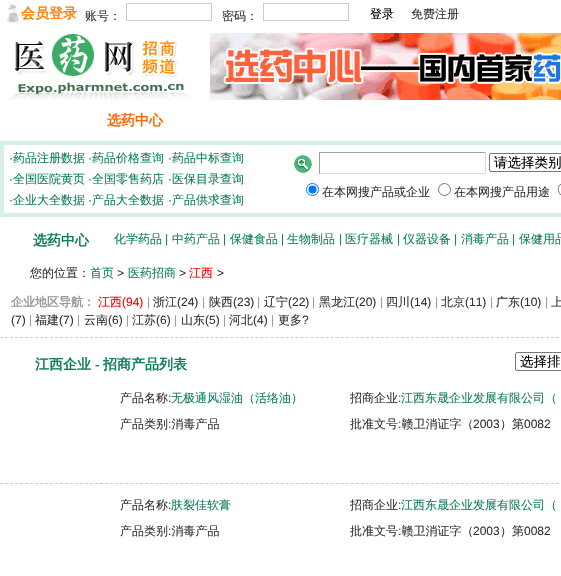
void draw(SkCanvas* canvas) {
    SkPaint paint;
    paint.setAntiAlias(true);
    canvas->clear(0xFFFFFFFF);
    canvas->drawImageRect(SkImages::DeferredFromEncodedData(SkData::MakeFromFileName("img1.png")), SkRect::MakeXYWH(7, 4, 12, 20), SkSamplingOptions());
    SkFont font1(fontMgr->matchFamilyStyle("WenQuanYi Zen Hei", SkFontStyle::Bold()), 14);
    font1.setSubpixel(true);
    paint.setColor(0xFFFF7F00);
    canvas->drawString("会员登录", 21, 18, font1, paint);
    SkFont font2(fontMgr->matchFamilyStyle("WenQuanYi Zen Hei", SkFontStyle(500, SkFontStyle::kNormal_Width, SkFontStyle::kUpright_Slant)), 12);
    font2.setSubpixel(true);
    paint.setColor(0xFF333333);
    canvas->drawString("账号：", 85, 20, font2, paint);
    paint.setStyle(SkPaint::kStroke_Style);
    paint.setStrokeWidth(1);
    paint.setColor(0xFFCCCCCC);
    canvas->drawRect(SkRect::MakeXYWH(126.5f, 3.5f, 85, 17), paint);
    paint.setStyle(SkPaint::kFill_Style);
    paint.setColor(0xFF333333);
    canvas->drawString("密码：", 222, 20, font2, paint);
    paint.setStyle(SkPaint::kStroke_Style);
    paint.setColor(0xFFCCCCCC);
    canvas->drawRect(SkRect::MakeXYWH(263.5f, 3.5f, 85, 17), paint);
    paint.setStyle(SkPaint::kFill_Style);
    paint.setColor(0xFF000000);
    canvas->drawString("登录", 370, 18, font2, paint);
    paint.setColor(0xFF333333);
    canvas->drawString("免费注册", 411, 18, font2, paint);
    canvas->drawImageRect(SkImages::DeferredFromEncodedData(SkData::MakeFromFileName("img2.png")), SkRect::MakeXYWH(8, 34, 185, 66), SkSamplingOptions());
    canvas->drawImageRect(SkImages::DeferredFromEncodedData(SkData::MakeFromFileName("img3.png")), SkRect::MakeXYWH(210, 33, 351, 67), SkSamplingOptions());
    paint.setColor(0xFFFF6600);
    canvas->drawString("选药中心", 107, 125, font1, paint);
    paint.setStyle(SkPaint::kStroke_Style);
    paint.setStrokeWidth(4);
    paint.setColor(0xFFD9F0EA);
    canvas->drawRect(SkRect::MakeXYWH(2, 143, 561, 72), paint);
    SkFont font3(fontMgr->matchFamilyStyle("Liberation Sans", SkFontStyle::Normal()), 12);
    font3.setSubpixel(true);
    paint.setStyle(SkPaint::kFill_Style);
    paint.setColor(0xFF0E7F5C);
    canvas->drawString("·", 9, 162, font3, paint);
    canvas->drawString("药品注册数据", 13, 162, font2, paint);
    canvas->drawString("·", 88, 162, font3, paint);
    canvas->drawString("药品价格查询", 92, 162, font2, paint);
    canvas->drawString("·", 168, 162, font3, paint);
    canvas->drawString("药品中标查询", 172, 162, font2, paint);
    canvas->drawString("·", 9, 183, font3, paint);
    canvas->drawString("全国医院黄页", 13, 183, font2, paint);
    canvas->drawString("·", 88, 183, font3, paint);
    canvas->drawString("全国零售药店", 92, 183, font2, paint);
    canvas->drawString("·", 168, 183, font3, paint);
    canvas->drawString("医保目录查询", 172, 183, font2, paint);
    canvas->drawString("·", 9, 204, font3, paint);
    canvas->drawString("企业大全数据", 13, 204, font2, paint);
    canvas->drawString("·", 88, 204, font3, paint);
    canvas->drawString("产品大全数据", 92, 204, font2, paint);
    canvas->drawString("·", 168, 204, font3, paint);
    canvas->drawString("产品供求查询", 172, 204, font2, paint);
    canvas->drawImageRect(SkImages::DeferredFromEncodedData(SkData::MakeFromFileName("img4.png")), SkRect::MakeXYWH(294, 155, 18, 18), SkSamplingOptions());
    paint.setColor(0xFF9F9F9F);
    canvas->drawRect(SkRect::MakeXYWH(319, 152, 167, 1), paint);
    paint.setColor(0xFFDBDBDB);
    canvas->drawRect(SkRect::MakeXYWH(485, 152, 1, 22), paint);
    canvas->drawRect(SkRect::MakeXYWH(319, 173, 167, 1), paint);
    paint.setColor(0xFF9F9F9F);
    canvas->drawRect(SkRect::MakeXYWH(319, 152, 1, 22), paint);
    paint.setStyle(SkPaint::kStroke_Style);
    paint.setStrokeWidth(1);
    paint.setColor(0xFF767676);
    canvas->drawRoundRect(SkRect::MakeXYWH(489.5f, 153.5f, 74, 18), 1.5f, 1.5f, paint);
    SkFont font4(fontMgr->matchFamilyStyle("WenQuanYi Zen Hei", SkFontStyle(500, SkFontStyle::kNormal_Width, SkFontStyle::kUpright_Slant)), 13.5f);
    font4.setSubpixel(true);
    paint.setStyle(SkPaint::kFill_Style);
    paint.setColor(0xFF000000);
    canvas->drawString("请选择类别", 494, 167, font4, paint);
    paint.setStyle(SkPaint::kStroke_Style);
    paint.setColor(0xFF0075FF);
    canvas->drawCircle(312.5f, 189.5f, 6, paint);
    paint.setStyle(SkPaint::kFill_Style);
    canvas->drawCircle(312.5f, 189.5f, 4, paint);
    paint.setColor(0xFF333333);
    canvas->drawString("在本网搜产品或企业", 322, 196, font2, paint);
    paint.setStyle(SkPaint::kStroke_Style);
    paint.setColor(0xFF767676);
    canvas->drawCircle(444.5f, 189.5f, 6, paint);
    paint.setStyle(SkPaint::kFill_Style);
    paint.setColor(0xFF333333);
    canvas->drawString("在本网搜产品用途", 454, 196, font2, paint);
    paint.setStyle(SkPaint::kStroke_Style);
    paint.setColor(0xFF767676);
    canvas->drawRoundRect(SkRect::MakeXYWH(558.5f, 183.5f, 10, 12), 6, 6, paint);
    paint.setStyle(SkPaint::kFill_Style);
    paint.setColor(0xFF0E7F5C);
    canvas->drawString("选药中心", 33, 245, font1, paint);
    canvas->drawString("化学药品", 114, 243, font2, paint);
    canvas->drawString("|", 165, 243, font3, paint);
    canvas->drawString("中药产品", 172, 243, font2, paint);
    canvas->drawString("|", 223, 243, font3, paint);
    canvas->drawString("保健食品", 230, 243, font2, paint);
    canvas->drawString("|", 281, 243, font3, paint);
    canvas->drawString("生物制品", 287, 243, font2, paint);
    canvas->drawString("|", 339, 243, font3, paint);
    canvas->drawString("医疗器械", 345, 243, font2, paint);
    canvas->drawString("|", 397, 243, font3, paint);
    canvas->drawString("仪器设备", 403, 243, font2, paint);
    canvas->drawString("|", 454, 243, font3, paint);
    canvas->drawString("消毒产品", 461, 243, font2, paint);
    canvas->drawString("|", 512, 243, font3, paint);
    canvas->drawString("保健用品", 519, 243, font2, paint);
    paint.setColor(0xFF333333);
    canvas->drawString("您的位置：", 30, 277, font2, paint);
    paint.setColor(0xFF0E7F5C);
    canvas->drawString("首页", 90, 277, font2, paint);
    paint.setColor(0xFF333333);
    canvas->drawString(">", 117, 277, font3, paint);
    paint.setColor(0xFF0E7F5C);
    canvas->drawString("医药招商", 128, 277, font2, paint);
    paint.setColor(0xFF333333);
    canvas->drawString(">", 179, 277, font3, paint);
    paint.setColor(0xFFFF0000);
    canvas->drawString("江西", 189, 277, font2, paint);
    paint.setColor(0xFF333333);
    canvas->drawString(">", 217, 277, font3, paint);
    paint.setStyle(SkPaint::kStroke_Style);
    paint.setColor(0xFFCCCCCC);
    paint.setPathEffect(SkDashPathEffect::Make({{3, 2.01f}}, 0));
    canvas->drawPath(SkPathBuilder().moveTo(0, 337.5f).lineTo(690, 337.5f).detach(), paint);
    paint.setPathEffect(nullptr);
    SkFont font5(fontMgr->matchFamilyStyle("WenQuanYi Zen Hei", SkFontStyle::Bold()), 12);
    font5.setSubpixel(true);
    paint.setStyle(SkPaint::kFill_Style);
    paint.setColor(0xFF999999);
    canvas->drawString("企业地区导航：", 11, 306, font5, paint);
    paint.setColor(0xFFFF0000);
    canvas->drawString("江西", 98, 306, font2, paint);
    canvas->drawString("(94)", 122, 306, font3, paint);
    paint.setColor(0xFF999999);
    canvas->drawString("|", 147, 306, font3, paint);
    paint.setColor(0xFF333333);
    canvas->drawString("浙江", 153, 306, font2, paint);
    canvas->drawString("(24)", 177, 306, font3, paint);
    paint.setColor(0xFF999999);
    canvas->drawString("|", 202, 306, font3, paint);
    paint.setColor(0xFF333333);
    canvas->drawString("陕西", 209, 306, font2, paint);
    canvas->drawString("(23)", 233, 306, font3, paint);
    paint.setColor(0xFF999999);
    canvas->drawString("|", 257, 306, font3, paint);
    paint.setColor(0xFF333333);
    canvas->drawString("辽宁", 264, 306, font2, paint);
    canvas->drawString("(22)", 288, 306, font3, paint);
    paint.setColor(0xFF999999);
    canvas->drawString("|", 312, 306, font3, paint);
    paint.setColor(0xFF333333);
    canvas->drawString("黑龙江", 319, 306, font2, paint);
    canvas->drawString("(20)", 355, 306, font3, paint);
    paint.setColor(0xFF999999);
    canvas->drawString("|", 380, 306, font3, paint);
    paint.setColor(0xFF333333);
    canvas->drawString("四川", 386, 306, font2, paint);
    canvas->drawString("(14)", 410, 306, font3, paint);
    paint.setColor(0xFF999999);
    canvas->drawString("|", 435, 306, font3, paint);
    paint.setColor(0xFF333333);
    canvas->drawString("北京", 441, 306, font2, paint);
    canvas->drawString("(11)", 465, 306, font3, paint);
    paint.setColor(0xFF999999);
    canvas->drawString("|", 490, 306, font3, paint);
    paint.setColor(0xFF333333);
    canvas->drawString("广东", 496, 306, font2, paint);
    canvas->drawString("(10)", 520, 306, font3, paint);
    paint.setColor(0xFF999999);
    canvas->drawString("|", 545, 306, font3, paint);
    paint.setColor(0xFF333333);
    canvas->drawString("上", 551, 306, font2, paint);
    canvas->drawString("(7)", 11, 324, font3, paint);
    paint.setColor(0xFF999999);
    canvas->drawString("|", 29, 324, font3, paint);
    paint.setColor(0xFF333333);
    canvas->drawString("福建", 35, 324, font2, paint);
    canvas->drawString("(7)", 59, 324, font3, paint);
    paint.setColor(0xFF999999);
    canvas->drawString("|", 77, 324, font3, paint);
    paint.setColor(0xFF333333);
    canvas->drawString("云南", 84, 324, font2, paint);
    canvas->drawString("(6)", 108, 324, font3, paint);
    paint.setColor(0xFF999999);
    canvas->drawString("|", 126, 324, font3, paint);
    paint.setColor(0xFF333333);
    canvas->drawString("江苏", 132, 324, font2, paint);
    canvas->drawString("(6)", 156, 324, font3, paint);
    paint.setColor(0xFF999999);
    canvas->drawString("|", 174, 324, font3, paint);
    paint.setColor(0xFF333333);
    canvas->drawString("山东", 181, 324, font2, paint);
    canvas->drawString("(5)", 205, 324, font3, paint);
    paint.setColor(0xFF999999);
    canvas->drawString("|", 223, 324, font3, paint);
    paint.setColor(0xFF333333);
    canvas->drawString("河北", 229, 324, font2, paint);
    canvas->drawString("(4)", 253, 324, font3, paint);
    paint.setColor(0xFF999999);
    canvas->drawString("|", 271, 324, font3, paint);
    paint.setColor(0xFF333333);
    canvas->drawString("更多", 278, 324, font2, paint);
    canvas->drawString("?", 302, 324, font3, paint);
    paint.setColor(0xFF0E7F5C);
    canvas->drawString("江西企业", 35, 369, font1, paint);
    SkFont font6(fontMgr->matchFamilyStyle("Liberation Serif", SkFontStyle::Bold()), 14);
    font6.setSubpixel(true);
    canvas->drawString("-", 95, 369, font6, paint);
    canvas->drawString("招商产品列表", 103, 369, font1, paint);
    paint.setStyle(SkPaint::kStroke_Style);
    paint.setColor(0xFF767676);
    canvas->drawRoundRect(SkRect::MakeXYWH(515.5f, 352.5f, 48, 18), 1.5f, 1.5f, paint);
    paint.setStyle(SkPaint::kFill_Style);
    paint.setColor(0xFF000000);
    canvas->drawString("选择排", 520, 366, font4, paint);
    paint.setStyle(SkPaint::kStroke_Style);
    paint.setColor(0xFFCCCCCC);
    paint.setPathEffect(SkDashPathEffect::Make({{3, 2.01f}}, 0));
    canvas->drawPath(SkPathBuilder().moveTo(0, 483.5f).lineTo(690, 483.5f).detach(), paint);
    paint.setPathEffect(nullptr);
    paint.setStyle(SkPaint::kFill_Style);
    paint.setColor(0xFF333333);
    canvas->drawString("产品名称", 120, 402, font2, paint);
    canvas->drawString(":", 168, 402, font3, paint);
    paint.setColor(0xFF0E7F5C);
    canvas->drawString("无极通风湿油（活络油）", 171, 402, font2, paint);
    paint.setColor(0xFF333333);
    canvas->drawString("产品类别 消毒产品", 120, 428, font2, paint);
    canvas->drawString(":", 168, 428, font3, paint);
    canvas->drawString("招商企业", 350, 402, font2, paint);
    canvas->drawString(":", 398, 402, font3, paint);
    paint.setColor(0xFF0E7F5C);
    canvas->drawString("江西东晟企业发展有限公司（", 401, 402, font2, paint);
    paint.setColor(0xFF333333);
    canvas->drawString("批准文号 赣卫消证字（", 350, 428, font2, paint);
    canvas->drawString("2003", 473, 428, font3, paint);
    canvas->drawString("）第", 500, 428, font2, paint);
    canvas->drawString("0082", 524, 428, font3, paint);
    canvas->drawString(":", 398, 428, font3, paint);
    canvas->drawString("产品名称", 120, 509, font2, paint);
    canvas->drawString(":", 168, 509, font3, paint);
    paint.setColor(0xFF0E7F5C);
    canvas->drawString("肤裂佳软膏", 171, 509, font2, paint);
    paint.setColor(0xFF333333);
    canvas->drawString("产品类别 消毒产品", 120, 535, font2, paint);
    canvas->drawString(":", 168, 535, font3, paint);
    canvas->drawString("招商企业", 350, 509, font2, paint);
    canvas->drawString(":", 398, 509, font3, paint);
    paint.setColor(0xFF0E7F5C);
    canvas->drawString("江西东晟企业发展有限公司（", 401, 509, font2, paint);
    paint.setColor(0xFF333333);
    canvas->drawString("批准文号 赣卫消证字（", 350, 535, font2, paint);
    canvas->drawString("2003", 473, 535, font3, paint);
    canvas->drawString("）第", 500, 535, font2, paint);
    canvas->drawString("0082", 524, 535, font3, paint);
    canvas->drawString(":", 398, 535, font3, paint);
}
